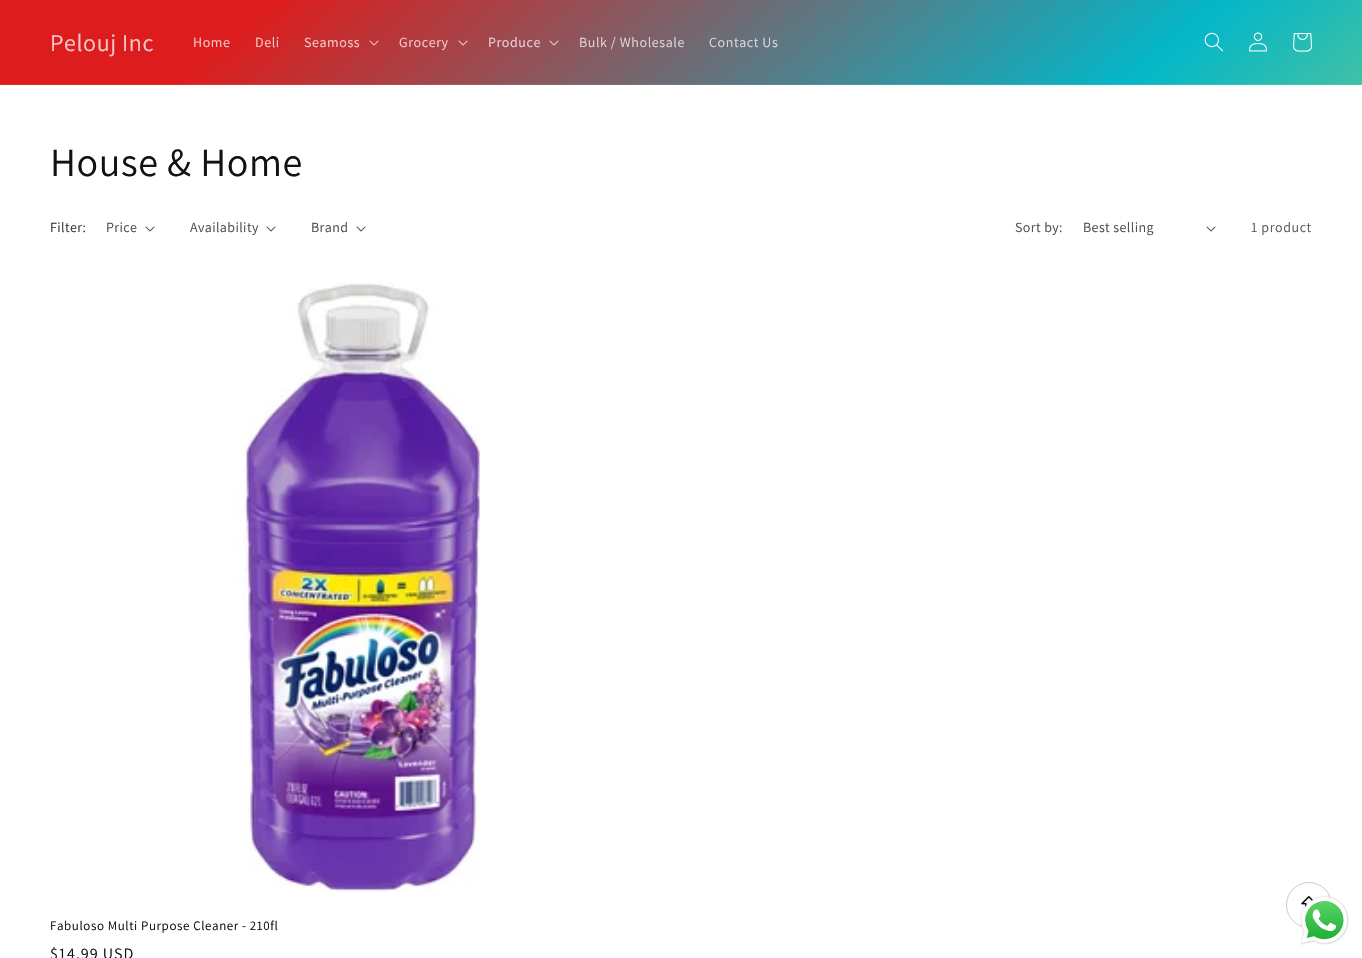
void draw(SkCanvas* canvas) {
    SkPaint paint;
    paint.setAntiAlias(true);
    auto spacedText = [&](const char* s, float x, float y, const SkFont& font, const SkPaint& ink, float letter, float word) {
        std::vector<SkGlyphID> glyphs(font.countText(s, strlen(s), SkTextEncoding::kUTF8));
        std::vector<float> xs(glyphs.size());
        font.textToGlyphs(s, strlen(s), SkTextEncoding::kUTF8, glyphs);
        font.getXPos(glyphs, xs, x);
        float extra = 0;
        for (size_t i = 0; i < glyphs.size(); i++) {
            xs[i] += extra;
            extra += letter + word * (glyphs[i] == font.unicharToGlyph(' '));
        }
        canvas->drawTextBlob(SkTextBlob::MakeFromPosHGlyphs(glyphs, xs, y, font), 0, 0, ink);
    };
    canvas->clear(0xFFFFFFFF);
    {
        const SkColor colors[] = {0xFFDD1D1D, 0xFF03B7C9, 0xFFFADC36};
        const float stops[] = {0.11f, 0.49f, 0.87f};
        const SkPoint ends[] = {{164, -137}, {1198, 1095}};
        paint.setShader(SkGradientShader::MakeLinear(ends, colors, stops, 3, SkTileMode::kClamp));
        paint.setAlpha(255);
    }
    canvas->drawRect(SkRect::MakeXYWH(0, 0, 1362, 84), paint);
    {
        const SkColor colors[] = {0xFFE02F2F, 0xFF17BDCD, 0xFFFADF46};
        const float stops[] = {0.11f, 0.49f, 0.87f};
        const SkPoint ends[] = {{164, -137}, {1198, 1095}};
        paint.setShader(SkGradientShader::MakeLinear(ends, colors, stops, 3, SkTileMode::kClamp));
        paint.setAlpha(255);
    }
    canvas->drawRect(SkRect::MakeXYWH(0, 84, 1362, 1), paint);
    SkFont font1(fontMgr->matchFamilyStyle("Assistant", SkFontStyle::Normal()), 24);
    font1.setSubpixel(true);
    paint.setShader(nullptr);
    paint.setColor(0xFFF7C7C7);
    spacedText("Pelouj Inc", 50, 51, font1, paint, 0.6f, 0);
    SkFont font2(fontMgr->matchFamilyStyle("Assistant", SkFontStyle::Normal()), 14);
    font2.setSubpixel(true);
    spacedText("Home", 193, 47, font2, paint, 0.6f, 0);
    spacedText("Deli", 255, 47, font2, paint, 0.6f, 0);
    paint.setColor(0xFFF0CBCB);
    spacedText("Seamoss", 304, 47, font2, paint, 0.6f, 0);
    canvas->drawImageRect(SkImages::DeferredFromEncodedData(SkData::MakeFromFileName("img1.png")), SkRect::MakeXYWH(369, 40, 10, 6), SkSamplingOptions());
    spacedText("Grocery", 399, 47, font2, paint, 0.6f, 0);
    canvas->drawImageRect(SkImages::DeferredFromEncodedData(SkData::MakeFromFileName("img2.png")), SkRect::MakeXYWH(458, 40, 10, 6), SkSamplingOptions());
    paint.setColor(0xFFE6D2D4);
    spacedText("Produce", 488, 47, font2, paint, 0.6f, 0);
    canvas->drawImageRect(SkImages::DeferredFromEncodedData(SkData::MakeFromFileName("img3.png")), SkRect::MakeXYWH(549, 40, 10, 6), SkSamplingOptions());
    paint.setColor(0xFFDFD7D9);
    spacedText("Bulk / Wholesale", 579, 47, font2, paint, 0.6f, 0);
    paint.setColor(0xFFD9DBDE);
    spacedText("Contact Us", 709, 47, font2, paint, 0.6f, 0);
    canvas->drawImageRect(SkImages::DeferredFromEncodedData(SkData::MakeFromFileName("img4.png")), SkRect::MakeXYWH(1204, 32, 19, 20), SkSamplingOptions());
    canvas->drawImageRect(SkImages::DeferredFromEncodedData(SkData::MakeFromFileName("img5.png")), SkRect::MakeXYWH(1249, 32, 18, 20), SkSamplingOptions());
    canvas->drawImageRect(SkImages::DeferredFromEncodedData(SkData::MakeFromFileName("img6.png")), SkRect::MakeXYWH(1293, 33, 20, 19), SkSamplingOptions());
    SkFont font3(fontMgr->matchFamilyStyle("Assistant", SkFontStyle::Normal()), 40);
    font3.setSubpixel(true);
    paint.setColor(0xFF121212);
    spacedText("House & Home", 50, 176, font3, paint, 0.6f, 0);
    paint.setColor(0xFF363636);
    spacedText("Filter:", 50, 232, font2, paint, 0.4f, 0);
    paint.setColor(0xFF4D4D4D);
    spacedText("Price", 106, 232, font2, paint, 0.4f, 0);
    canvas->drawImageRect(SkImages::DeferredFromEncodedData(SkData::MakeFromFileName("img7.png")), SkRect::MakeXYWH(145, 226, 10, 6), SkSamplingOptions());
    spacedText("Availability", 190, 232, font2, paint, 0.4f, 0);
    canvas->drawImageRect(SkImages::DeferredFromEncodedData(SkData::MakeFromFileName("img7.png")), SkRect::MakeXYWH(266, 226, 10, 6), SkSamplingOptions());
    spacedText("Brand", 311, 232, font2, paint, 0.4f, 0);
    canvas->drawImageRect(SkImages::DeferredFromEncodedData(SkData::MakeFromFileName("img7.png")), SkRect::MakeXYWH(356, 226, 10, 6), SkSamplingOptions());
    spacedText("Sort by:", 1015, 232, font2, paint, 0.4f, 0);
    spacedText("Best selling", 1083, 232, font2, paint, 0.4f, 0);
    canvas->drawImageRect(SkImages::DeferredFromEncodedData(SkData::MakeFromFileName("img7.png")), SkRect::MakeXYWH(1206, 226, 10, 6), SkSamplingOptions());
    paint.setColor(0xFF595959);
    spacedText("1 product", 1251, 232, font2, paint, 0.6f, 0);
    canvas->drawImageRect(SkImages::DeferredFromEncodedData(SkData::MakeFromFileName("img8.png")), SkRect::MakeXYWH(236, 282, 245, 610), SkSamplingOptions());
    SkFont font4(fontMgr->matchFamilyStyle("Assistant", SkFontStyle::Normal()), 13);
    font4.setSubpixel(true);
    paint.setColor(0xFF121212);
    spacedText("Fabuloso Multi Purpose Cleaner - 210fl", 50, 930, font4, paint, 0.6f, 0);
    SkFont font5(fontMgr->matchFamilyStyle("Assistant", SkFontStyle::Normal()), 16);
    font5.setSubpixel(true);
    spacedText("$14.99 USD", 50, 959, font5, paint, 1, 0);
    paint.setStyle(SkPaint::kStroke_Style);
    paint.setStrokeWidth(1);
    paint.setColor(0xFFC4CDD5);
    canvas->drawCircle(1309, 905, 22.5f, paint);
    canvas->drawImageRect(SkImages::DeferredFromEncodedData(SkData::MakeFromFileName("img9.png")), SkRect::MakeXYWH(1301, 896, 12, 12), SkSamplingOptions());
    canvas->drawImageRect(SkImages::DeferredFromEncodedData(SkData::MakeFromFileName("img10.png")), SkRect::MakeXYWH(1300, 895, 49, 50), SkSamplingOptions());
}
